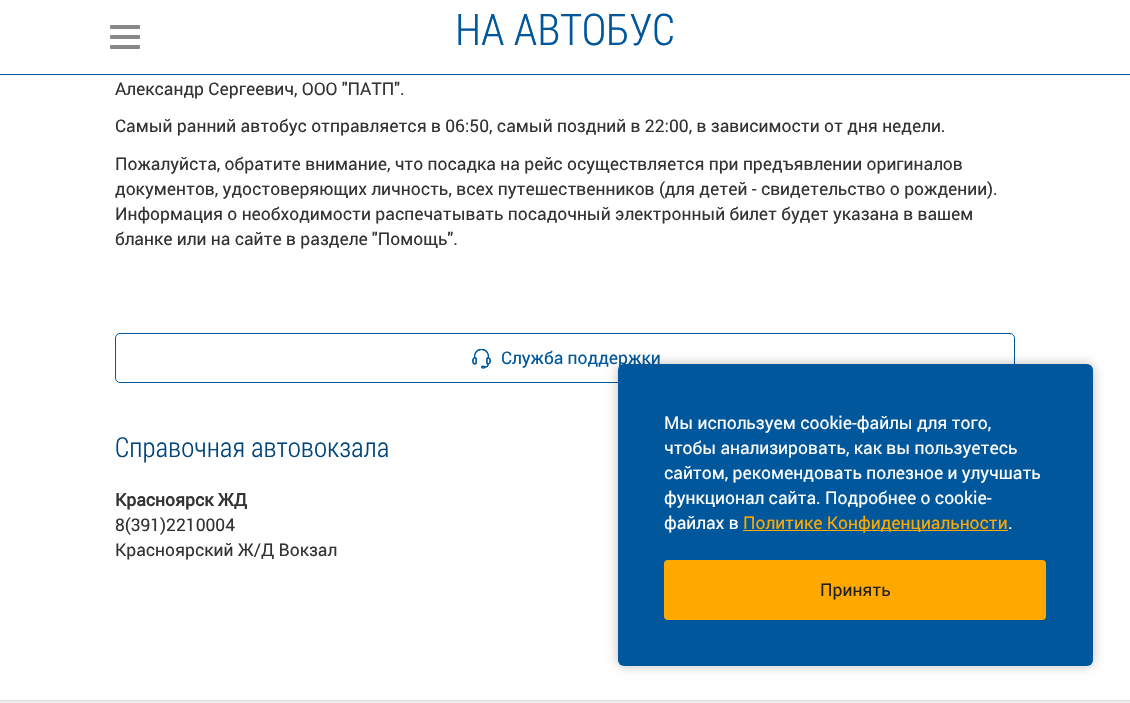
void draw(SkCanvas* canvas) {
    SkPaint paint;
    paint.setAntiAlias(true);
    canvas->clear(0xFFFFFFFF);
    paint.setColor(0xFF01579B);
    canvas->drawRect(SkRect::MakeXYWH(0, 74, 1130, 1), paint);
    paint.setColor(0xFF888888);
    canvas->drawRoundRect(SkRect::MakeXYWH(110, 25, 30, 4), 1, 1, paint);
    canvas->drawRoundRect(SkRect::MakeXYWH(110, 35, 30, 4), 1, 1, paint);
    canvas->drawRoundRect(SkRect::MakeXYWH(110, 45, 30, 4), 1, 1, paint);
    SkFont font1(fontMgr->matchFamilyStyle("Roboto Condensed", SkFontStyle(300, SkFontStyle::kNormal_Width, SkFontStyle::kUpright_Slant)), 43.75f);
    font1.setSubpixel(true);
    paint.setColor(0xFF00579B);
    canvas->drawString("НА АВТОБУС", 455, 45, font1, paint);
    SkFont font2(fontMgr->matchFamilyStyle("Roboto", SkFontStyle::Normal()), 17.5f);
    font2.setSubpixel(true);
    paint.setColor(0xFF333333);
    canvas->drawString("Александр Сергеевич, ООО \"ПАТП\".", 115, 95, font2, paint);
    canvas->drawString("Самый ранний автобус отправляется в 06:50, самый поздний в 22:00, в зависимости от дня недели.", 115, 132, font2, paint);
    canvas->drawString("Пожалуйста, обратите внимание, что посадка на рейс осуществляется при предъявлении оригиналов", 115, 170, font2, paint);
    canvas->drawString("документов, удостоверяющих личность, всех путешественников (для детей - свидетельство о рождении).", 115, 195, font2, paint);
    canvas->drawString("Информация о необходимости распечатывать посадочный электронный билет будет указана в вашем", 115, 220, font2, paint);
    canvas->drawString("бланке или на сайте в разделе \"Помощь\".", 115, 245, font2, paint);
    paint.setStyle(SkPaint::kStroke_Style);
    paint.setStrokeWidth(1);
    paint.setColor(0xFF01579B);
    canvas->drawRoundRect(SkRect::MakeXYWH(115.5f, 333.5f, 899, 49), 4.5f, 4.5f, paint);
    canvas->drawImageRect(SkImages::DeferredFromEncodedData(SkData::MakeFromFileName("img1.png")), SkRect::MakeXYWH(472, 349, 19, 20), SkSamplingOptions());
    paint.setStyle(SkPaint::kFill_Style);
    paint.setColor(0xFF00579B);
    canvas->drawString("Служба поддержки", 501, 364, font2, paint);
    SkFont font3(fontMgr->matchFamilyStyle("Roboto Condensed", SkFontStyle(300, SkFontStyle::kNormal_Width, SkFontStyle::kUpright_Slant)), 27.5f);
    font3.setSubpixel(true);
    paint.setColor(0xFF01467C);
    canvas->drawString("Справочная автовокзала", 115, 457, font3, paint);
    SkFont font4(fontMgr->matchFamilyStyle("Roboto", SkFontStyle::Bold()), 17.5f);
    font4.setSubpixel(true);
    paint.setColor(0xFF333333);
    canvas->drawString("Красноярск ЖД", 115, 506, font4, paint);
    canvas->drawString("8(391)2210004", 115, 531, font2, paint);
    canvas->drawString("Красноярский Ж/Д Вокзал", 115, 556, font2, paint);
    paint.setColor(0x40000000);
    paint.setMaskFilter(SkMaskFilter::MakeBlur(kNormal_SkBlurStyle, 6));
    canvas->drawRoundRect(SkRect::MakeXYWH(618, 364, 475, 302), 6, 6, paint);
    paint.setMaskFilter(nullptr);
    paint.setColor(0xFF01579B);
    canvas->drawRoundRect(SkRect::MakeXYWH(618, 364, 475, 302), 6, 6, paint);
    paint.setColor(0xFFFFFFFF);
    canvas->drawString("Мы используем cookie-файлы для того,", 664, 429, font2, paint);
    canvas->drawString("чтобы анализировать, как вы пользуетесь", 664, 454, font2, paint);
    canvas->drawString("сайтом, рекомендовать полезное и улучшать", 664, 479, font2, paint);
    canvas->drawString("функционал сайта. Подробнее о cookie-", 664, 504, font2, paint);
    canvas->drawString("файлах в", 664, 529, font2, paint);
    paint.setColor(0xFFFFA800);
    canvas->drawRect(SkRect::MakeXYWH(743, 530, 265, 1), paint);
    canvas->drawString("Политике Конфиденциальности", 743, 529, font2, paint);
    paint.setColor(0xFFFFFFFF);
    canvas->drawString(".", 1008, 529, font2, paint);
    paint.setColor(0xFFFFA800);
    canvas->drawRoundRect(SkRect::MakeXYWH(664, 560, 382, 60), 4, 4, paint);
    paint.setColor(0xFF222222);
    canvas->drawString("Принять", 820, 596, font2, paint);
    paint.setColor(0xFFEEEEEE);
    canvas->drawRect(SkRect::MakeXYWH(0, 701, 1130, 2), paint);
    paint.setColor(0xFFDDDDDD);
    canvas->drawRect(SkRect::MakeXYWH(0, 700, 1130, 1), paint);
}
